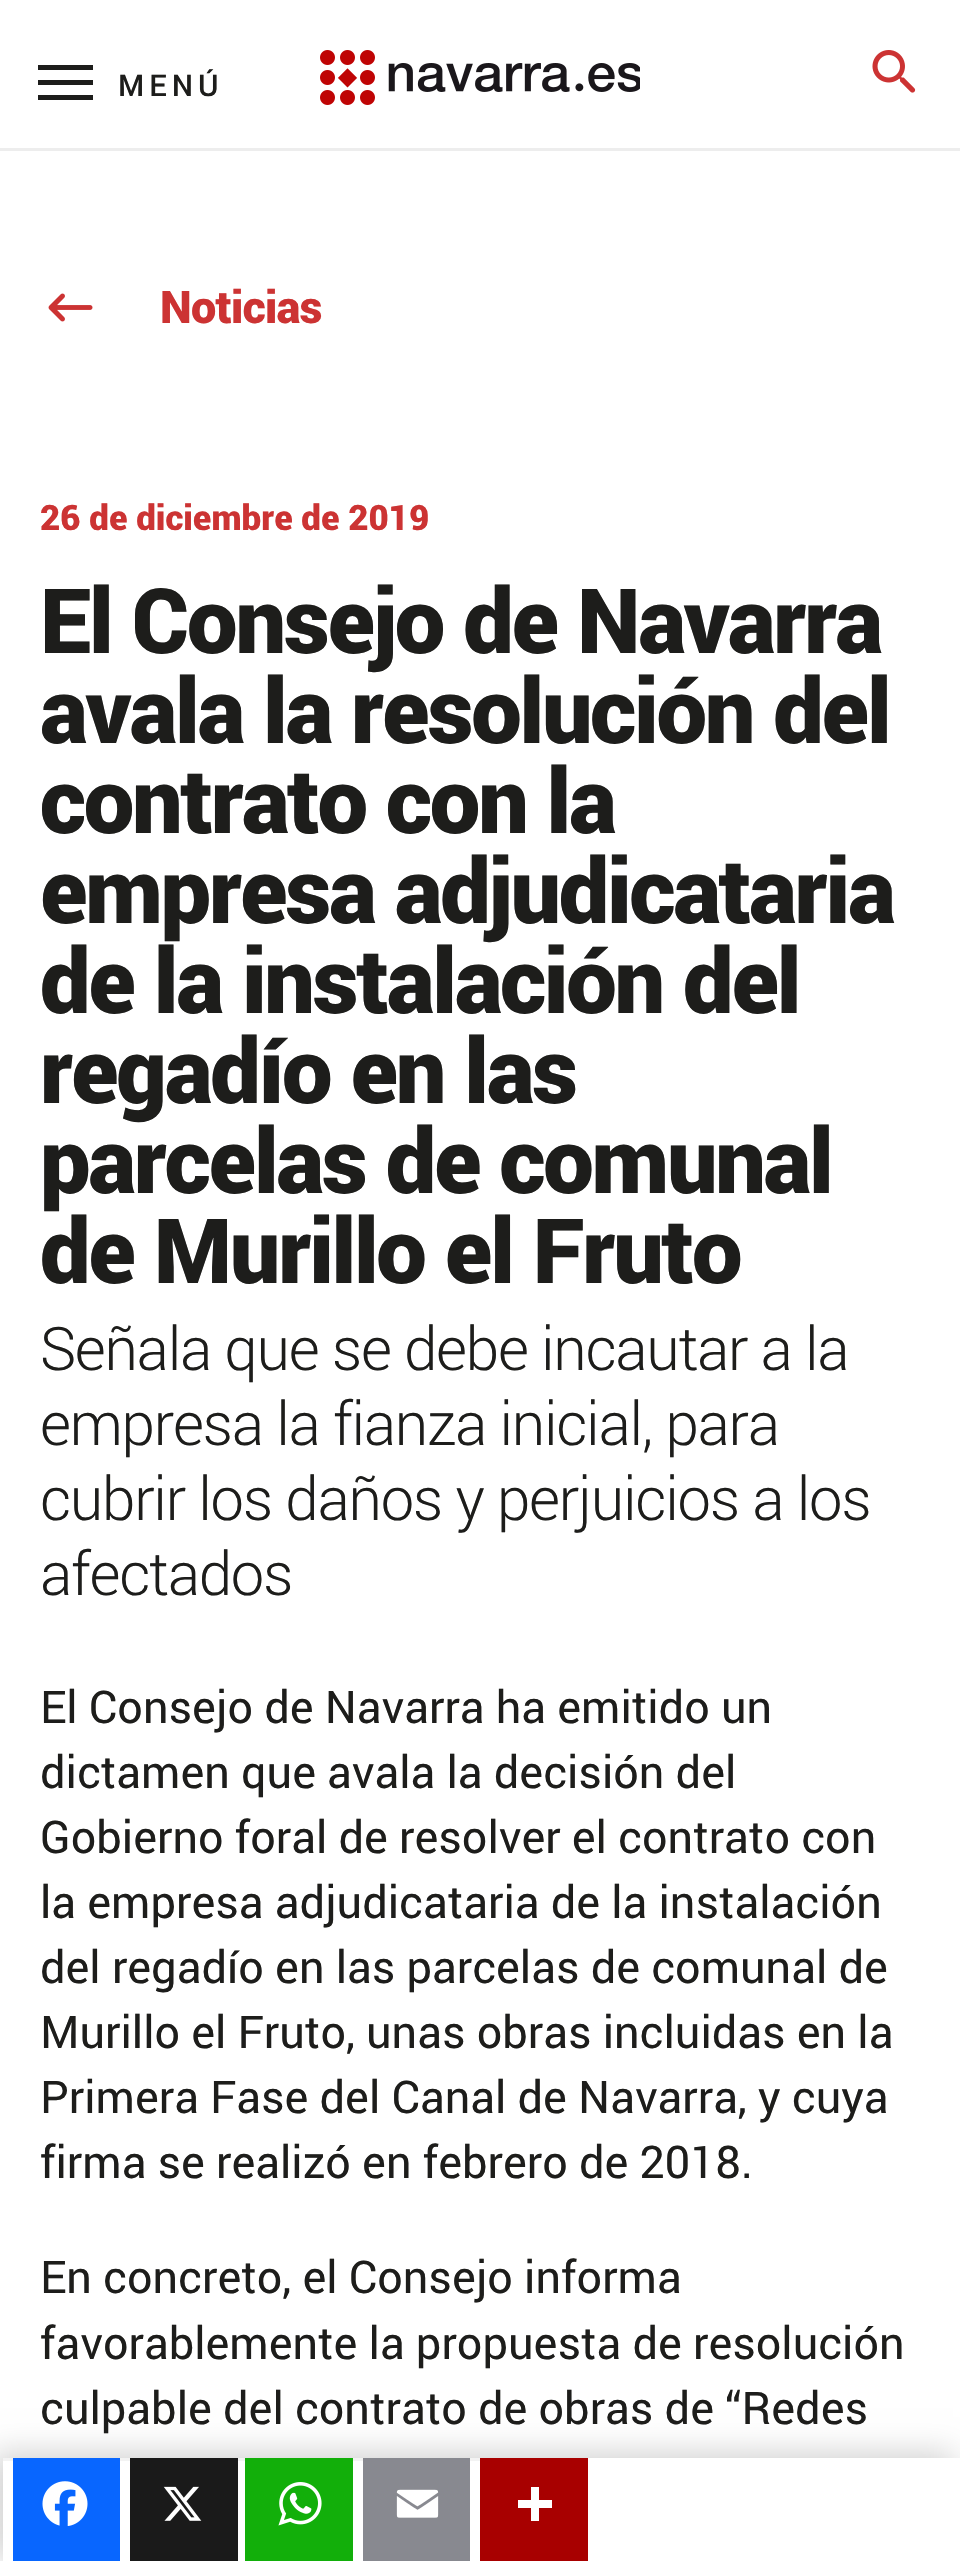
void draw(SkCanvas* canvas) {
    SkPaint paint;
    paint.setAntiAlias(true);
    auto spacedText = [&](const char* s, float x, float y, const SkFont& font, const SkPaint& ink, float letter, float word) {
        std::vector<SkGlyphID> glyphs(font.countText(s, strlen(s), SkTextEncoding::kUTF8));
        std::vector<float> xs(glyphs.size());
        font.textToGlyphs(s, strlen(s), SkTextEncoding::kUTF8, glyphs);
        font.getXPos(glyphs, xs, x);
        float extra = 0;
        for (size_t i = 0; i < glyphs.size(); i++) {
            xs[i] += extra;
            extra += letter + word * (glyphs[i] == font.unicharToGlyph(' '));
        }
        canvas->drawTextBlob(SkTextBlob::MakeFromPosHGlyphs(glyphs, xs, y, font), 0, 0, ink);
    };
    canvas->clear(0xFFFFFFFF);
    paint.setColor(0xFF1D1D1B);
    canvas->drawRect(SkRect::MakeXYWH(38, 65, 55, 5), paint);
    canvas->drawRect(SkRect::MakeXYWH(38, 80, 55, 5), paint);
    SkFont font1(fontMgr->matchFamilyStyle("Roboto", SkFontStyle(500, SkFontStyle::kNormal_Width, SkFontStyle::kUpright_Slant)), 30);
    font1.setSubpixel(true);
    spacedText("MENÚ", 118, 96, font1, paint, 5, 0);
    canvas->drawRect(SkRect::MakeXYWH(38, 95, 55, 5), paint);
    canvas->drawImageRect(SkImages::DeferredFromEncodedData(SkData::MakeFromFileName("img1.png")), SkRect::MakeXYWH(320, 50, 320, 55), SkSamplingOptions());
    canvas->drawImageRect(SkImages::DeferredFromEncodedData(SkData::MakeFromFileName("img2.png")), SkRect::MakeXYWH(872, 50, 44, 43), SkSamplingOptions());
    paint.setColor(0xFFEDEDED);
    canvas->drawRect(SkRect::MakeXYWH(0, 148, 960, 3), paint);
    canvas->drawImageRect(SkImages::DeferredFromEncodedData(SkData::MakeFromFileName("img3.png")), SkRect::MakeXYWH(48, 293, 45, 29), SkSamplingOptions());
    SkFont font2(fontMgr->matchFamilyStyle("Roboto", SkFontStyle(900, SkFontStyle::kNormal_Width, SkFontStyle::kUpright_Slant)), 45);
    font2.setSubpixel(true);
    paint.setColor(0xFFCC3333);
    spacedText("Noticias", 160, 323, font2, paint, -0.75f, 0);
    SkFont font3(fontMgr->matchFamilyStyle("Roboto", SkFontStyle(900, SkFontStyle::kNormal_Width, SkFontStyle::kUpright_Slant)), 35);
    font3.setSubpixel(true);
    canvas->drawString("26 de diciembre de 2019", 40, 530, font3, paint);
    SkFont font4(fontMgr->matchFamilyStyle("Roboto", SkFontStyle(900, SkFontStyle::kNormal_Width, SkFontStyle::kUpright_Slant)), 90);
    font4.setSubpixel(true);
    paint.setColor(0xFF1D1D1B);
    spacedText("El Consejo de Navarra", 40, 653, font4, paint, -2.25f, 0);
    spacedText("avala la resolución del", 40, 743, font4, paint, -2.25f, 0);
    spacedText("contrato con la", 40, 833, font4, paint, -2.25f, 0);
    spacedText("empresa adjudicataria", 40, 923, font4, paint, -2.25f, 0);
    spacedText("de la instalación del", 40, 1013, font4, paint, -2.25f, 0);
    spacedText("regadío en las", 40, 1103, font4, paint, -2.25f, 0);
    spacedText("parcelas de comunal", 40, 1193, font4, paint, -2.25f, 0);
    spacedText("de Murillo el Fruto", 40, 1283, font4, paint, -2.25f, 0);
    SkFont font5(fontMgr->matchFamilyStyle("Roboto", SkFontStyle(300, SkFontStyle::kNormal_Width, SkFontStyle::kUpright_Slant)), 60);
    font5.setSubpixel(true);
    spacedText("Señala que se debe incautar a la", 40, 1370, font5, paint, -1.25f, 0);
    spacedText("empresa la fianza inicial, para", 40, 1445, font5, paint, -1.25f, 0);
    spacedText("cubrir los daños y perjuicios a los", 40, 1520, font5, paint, -1.25f, 0);
    spacedText("afectados", 40, 1595, font5, paint, -1.25f, 0);
    SkFont font6(fontMgr->matchFamilyStyle("Roboto", SkFontStyle::Normal()), 45);
    font6.setSubpixel(true);
    canvas->drawString("El Consejo de Navarra ha emitido un", 40, 1723, font6, paint);
    canvas->drawString("dictamen que avala la decisión del", 40, 1788, font6, paint);
    canvas->drawString("Gobierno foral de resolver el contrato con", 40, 1853, font6, paint);
    canvas->drawString("la empresa adjudicataria de la instalación", 40, 1918, font6, paint);
    canvas->drawString("del regadío en las parcelas de comunal de", 40, 1983, font6, paint);
    canvas->drawString("Murillo el Fruto, unas obras incluidas en la", 40, 2048, font6, paint);
    canvas->drawString("Primera Fase del Canal de Navarra, y cuya", 40, 2113, font6, paint);
    canvas->drawString("firma se realizó en febrero de 2018.", 40, 2178, font6, paint);
    canvas->drawString("En concreto, el Consejo informa", 40, 2293, font6, paint);
    canvas->drawString("favorablemente la propuesta de resolución", 40, 2359, font6, paint);
    canvas->drawString("culpable del contrato de obras de “Redes", 40, 2424, font6, paint);
    paint.setColor(0x2E000000);
    paint.setMaskFilter(SkMaskFilter::MakeBlur(kNormal_SkBlurStyle, 15));
    canvas->drawRect(SkRect::MakeXYWH(-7, 2453, 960, 107), paint);
    paint.setMaskFilter(nullptr);
    paint.setColor(0xFFFFFFFF);
    canvas->drawRect(SkRect::MakeXYWH(3, 2458, 957, 103), paint);
    paint.setColor(0xFFF3F3F3);
    canvas->drawRect(SkRect::MakeXYWH(3, 2458, 10, 3), paint);
    paint.setColor(0xFF0866FF);
    canvas->drawRect(SkRect::MakeXYWH(13, 2458, 107, 103), paint);
    canvas->drawImageRect(SkImages::DeferredFromEncodedData(SkData::MakeFromFileName("img4.png")), SkRect::MakeXYWH(42, 2481, 46, 45), SkSamplingOptions());
    paint.setColor(0xFFF3F3F3);
    canvas->drawRect(SkRect::MakeXYWH(120, 2458, 10, 3), paint);
    paint.setColor(0xFF1A1A1A);
    canvas->drawRect(SkRect::MakeXYWH(130, 2458, 108, 103), paint);
    canvas->drawImageRect(SkImages::DeferredFromEncodedData(SkData::MakeFromFileName("img5.png")), SkRect::MakeXYWH(163, 2486, 39, 35), SkSamplingOptions());
    paint.setColor(0xFFF3F3F3);
    canvas->drawRect(SkRect::MakeXYWH(238, 2458, 8, 3), paint);
    paint.setColor(0xFF12AF0A);
    canvas->drawRect(SkRect::MakeXYWH(245, 2458, 108, 103), paint);
    canvas->drawImageRect(SkImages::DeferredFromEncodedData(SkData::MakeFromFileName("img6.png")), SkRect::MakeXYWH(278, 2482, 44, 44), SkSamplingOptions());
    paint.setColor(0xFFF3F3F3);
    canvas->drawRect(SkRect::MakeXYWH(353, 2458, 10, 3), paint);
    paint.setColor(0xFF888990);
    canvas->drawRect(SkRect::MakeXYWH(363, 2458, 107, 103), paint);
    canvas->drawImageRect(SkImages::DeferredFromEncodedData(SkData::MakeFromFileName("img7.png")), SkRect::MakeXYWH(396, 2489, 43, 29), SkSamplingOptions());
    paint.setColor(0xFFF3F3F3);
    canvas->drawRect(SkRect::MakeXYWH(470, 2458, 10, 3), paint);
    paint.setColor(0xFFA80000);
    canvas->drawRect(SkRect::MakeXYWH(480, 2458, 108, 103), paint);
    paint.setColor(0xFFFFFFFF);
    canvas->drawRect(SkRect::MakeXYWH(531, 2487, 8, 34), paint);
    canvas->drawRect(SkRect::MakeXYWH(518, 2500, 34, 8), paint);
}
